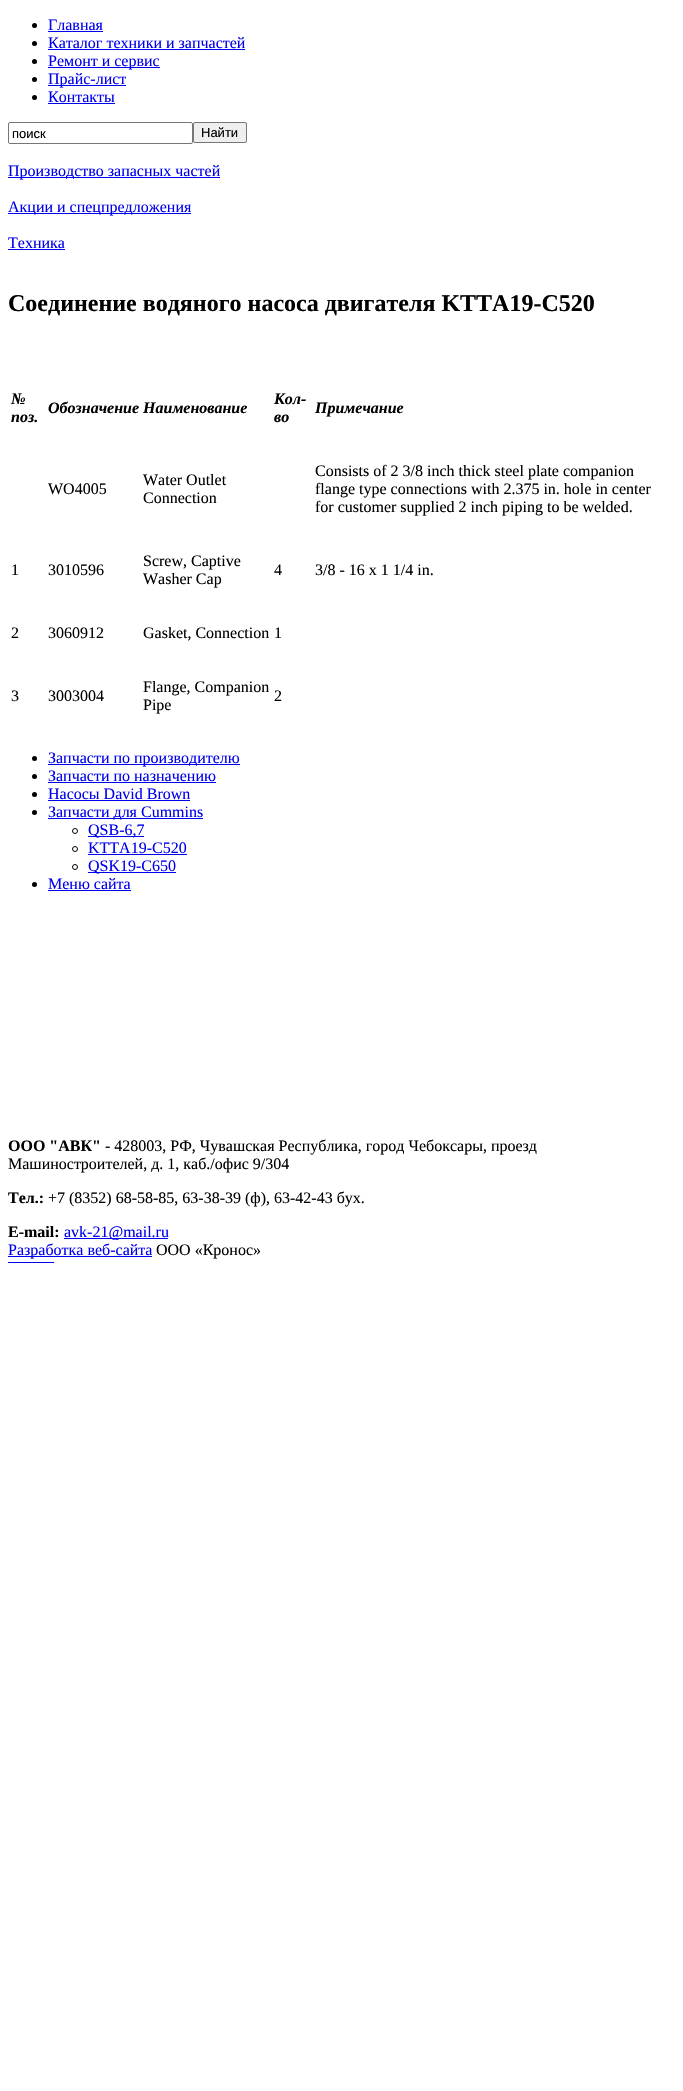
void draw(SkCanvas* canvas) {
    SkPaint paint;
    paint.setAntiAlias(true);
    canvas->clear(0xFFFFFFFF);
    paint.setColor(0xFF000000);
    canvas->drawCircle(34.5f, 25.5f, 2.5f, paint);
    SkFont font1(fontMgr->matchFamilyStyle("Liberation Serif", SkFontStyle::Normal()), 16);
    font1.setSubpixel(true);
    paint.setColor(0xFF0000EE);
    canvas->drawString("Главная", 48, 30, font1, paint);
    canvas->drawRect(SkRect::MakeXYWH(48, 31, 55, 1), paint);
    paint.setColor(0xFF000000);
    canvas->drawCircle(34.5f, 43.5f, 2.5f, paint);
    paint.setColor(0xFF0000EE);
    canvas->drawString("Каталог техники и запчастей", 48, 48, font1, paint);
    canvas->drawRect(SkRect::MakeXYWH(48, 49, 197, 1), paint);
    paint.setColor(0xFF000000);
    canvas->drawCircle(34.5f, 61.5f, 2.5f, paint);
    paint.setColor(0xFF0000EE);
    canvas->drawRect(SkRect::MakeXYWH(48, 67, 112, 1), paint);
    canvas->drawString("Ремонт и сервис", 48, 66, font1, paint);
    paint.setColor(0xFF000000);
    canvas->drawCircle(34.5f, 79.5f, 2.5f, paint);
    paint.setColor(0xFF0000EE);
    canvas->drawRect(SkRect::MakeXYWH(48, 85, 78, 1), paint);
    canvas->drawString("Прайс-лист", 48, 84, font1, paint);
    paint.setColor(0xFF000000);
    canvas->drawCircle(34.5f, 97.5f, 2.5f, paint);
    paint.setColor(0xFF0000EE);
    canvas->drawString("Контакты", 48, 102, font1, paint);
    canvas->drawRect(SkRect::MakeXYWH(48, 103, 67, 1), paint);
    paint.setStyle(SkPaint::kStroke_Style);
    paint.setStrokeWidth(1);
    paint.setColor(0xFF767676);
    canvas->drawRoundRect(SkRect::MakeXYWH(8.5f, 122.5f, 184, 21), 1.5f, 1.5f, paint);
    SkFont font2(fontMgr->matchFamilyStyle("Liberation Sans", SkFontStyle::Normal()), 13);
    font2.setSubpixel(true);
    paint.setStyle(SkPaint::kFill_Style);
    paint.setColor(0xFF000000);
    canvas->drawString("поиск", 12, 138, font2, paint);
    paint.setColor(0xFFEFEFEF);
    canvas->drawRoundRect(SkRect::MakeXYWH(193.5f, 122.5f, 53, 20), 1.5f, 1.5f, paint);
    paint.setStyle(SkPaint::kStroke_Style);
    paint.setColor(0xFF767676);
    canvas->drawRoundRect(SkRect::MakeXYWH(193.5f, 122.5f, 53, 20), 1.5f, 1.5f, paint);
    paint.setStyle(SkPaint::kFill_Style);
    paint.setColor(0xFF000000);
    canvas->drawString("Найти", 201, 137, font2, paint);
    paint.setColor(0xFF0000EE);
    canvas->drawRect(SkRect::MakeXYWH(8, 177, 212, 1), paint);
    canvas->drawString("Производство запасных частей", 8, 176, font1, paint);
    canvas->drawRect(SkRect::MakeXYWH(8, 213, 183, 1), paint);
    canvas->drawString("Акции и спецпредложения", 8, 212, font1, paint);
    canvas->drawString("Техника", 8, 248, font1, paint);
    canvas->drawRect(SkRect::MakeXYWH(8, 249, 57, 1), paint);
    SkFont font3(fontMgr->matchFamilyStyle("Liberation Serif", SkFontStyle::Bold()), 24);
    font3.setSubpixel(true);
    paint.setColor(0xFF000000);
    canvas->drawString("Соединение водяного насоса двигателя KTTA19-C520", 8, 311, font3, paint);
    SkFont font4(fontMgr->matchFamilyStyle("Liberation Serif", SkFontStyle::BoldItalic()), 16);
    font4.setSubpixel(true);
    canvas->drawString("№", 11, 404, font4, paint);
    canvas->drawString("поз.", 11, 422, font4, paint);
    canvas->drawString("Обозначение Наименование", 48, 413, font4, paint);
    canvas->drawString("Кол-", 274, 404, font4, paint);
    canvas->drawString("во", 274, 422, font4, paint);
    canvas->drawString("Примечание", 315, 413, font4, paint);
    canvas->drawString("WO4005", 48, 494, font1, paint);
    canvas->drawString("Water Outlet", 143, 485, font1, paint);
    canvas->drawString("Connection", 143, 503, font1, paint);
    canvas->drawString("Consists of 2 3/8 inch thick steel plate companion", 315, 476, font1, paint);
    canvas->drawString("flange type connections with 2.375 in. hole in center", 315, 494, font1, paint);
    canvas->drawString("for customer supplied 2 inch piping to be welded.", 315, 512, font1, paint);
    canvas->drawString("1", 11, 575, font1, paint);
    canvas->drawString("3010596", 48, 575, font1, paint);
    canvas->drawString("Screw, Captive", 143, 566, font1, paint);
    canvas->drawString("Washer Cap", 143, 584, font1, paint);
    canvas->drawString("4", 274, 575, font1, paint);
    canvas->drawString("3/8 - 16 x 1 1/4 in.", 315, 575, font1, paint);
    canvas->drawString("2", 11, 638, font1, paint);
    canvas->drawString("3060912", 48, 638, font1, paint);
    canvas->drawString("Gasket, Connection", 143, 638, font1, paint);
    canvas->drawString("1", 274, 638, font1, paint);
    canvas->drawString("3", 11, 701, font1, paint);
    canvas->drawString("3003004", 48, 701, font1, paint);
    canvas->drawString("Flange, Companion", 143, 692, font1, paint);
    canvas->drawString("Pipe", 143, 710, font1, paint);
    canvas->drawString("2", 274, 701, font1, paint);
    canvas->drawCircle(34.5f, 758.5f, 2.5f, paint);
    paint.setColor(0xFF0000EE);
    canvas->drawRect(SkRect::MakeXYWH(48, 764, 192, 1), paint);
    canvas->drawString("Запчасти по производителю", 48, 763, font1, paint);
    paint.setColor(0xFF000000);
    canvas->drawCircle(34.5f, 776.5f, 2.5f, paint);
    paint.setColor(0xFF0000EE);
    canvas->drawString("Запчасти по назначению", 48, 781, font1, paint);
    canvas->drawRect(SkRect::MakeXYWH(48, 782, 168, 1), paint);
    paint.setColor(0xFF000000);
    canvas->drawCircle(34.5f, 794.5f, 2.5f, paint);
    paint.setColor(0xFF0000EE);
    canvas->drawString("Насосы David Brown", 48, 799, font1, paint);
    canvas->drawRect(SkRect::MakeXYWH(48, 800, 142, 1), paint);
    paint.setColor(0xFF000000);
    canvas->drawCircle(34.5f, 812.5f, 2.5f, paint);
    paint.setColor(0xFF0000EE);
    canvas->drawRect(SkRect::MakeXYWH(48, 818, 155, 1), paint);
    canvas->drawString("Запчасти для Cummins", 48, 817, font1, paint);
    paint.setStyle(SkPaint::kStroke_Style);
    paint.setColor(0xFF000000);
    canvas->drawCircle(75, 831, 2.5f, paint);
    paint.setStyle(SkPaint::kFill_Style);
    paint.setColor(0xFF0000EE);
    canvas->drawRect(SkRect::MakeXYWH(88, 836, 56, 1), paint);
    canvas->drawString("QSB-6,7", 88, 835, font1, paint);
    paint.setStyle(SkPaint::kStroke_Style);
    paint.setColor(0xFF000000);
    canvas->drawCircle(75, 849, 2.5f, paint);
    paint.setStyle(SkPaint::kFill_Style);
    paint.setColor(0xFF0000EE);
    canvas->drawString("KTTA19-C520", 88, 853, font1, paint);
    canvas->drawRect(SkRect::MakeXYWH(88, 854, 99, 1), paint);
    paint.setStyle(SkPaint::kStroke_Style);
    paint.setColor(0xFF000000);
    canvas->drawCircle(75, 867, 2.5f, paint);
    paint.setStyle(SkPaint::kFill_Style);
    paint.setColor(0xFF0000EE);
    canvas->drawRect(SkRect::MakeXYWH(88, 872, 88, 1), paint);
    canvas->drawString("QSK19-C650", 88, 871, font1, paint);
    paint.setColor(0xFF000000);
    canvas->drawCircle(34.5f, 884.5f, 2.5f, paint);
    paint.setColor(0xFF0000EE);
    canvas->drawString("Меню сайта", 48, 889, font1, paint);
    canvas->drawRect(SkRect::MakeXYWH(48, 890, 83, 1), paint);
    SkFont font5(fontMgr->matchFamilyStyle("Liberation Serif", SkFontStyle::Bold()), 16);
    font5.setSubpixel(true);
    paint.setColor(0xFF000000);
    canvas->drawString("ООО \"АВК\"", 8, 1151, font5, paint);
    canvas->drawString("- 428003, РФ, Чувашская Республика, город Чебоксары, проезд", 105, 1151, font1, paint);
    canvas->drawString("Машиностроителей, д. 1, каб./офис 9/304", 8, 1169, font1, paint);
    canvas->drawString("Тел.:", 8, 1203, font5, paint);
    canvas->drawString("+7 (8352) 68-58-85, 63-38-39 (ф), 63-42-43 бух.", 48, 1203, font1, paint);
    canvas->drawString("E-mail:", 8, 1237, font5, paint);
    paint.setColor(0xFF0000EE);
    canvas->drawRect(SkRect::MakeXYWH(64, 1238, 104, 1), paint);
    canvas->drawString("avk-21@mail.ru", 64, 1237, font1, paint);
    canvas->drawRect(SkRect::MakeXYWH(8, 1256, 144, 1), paint);
    canvas->drawString("Разработка веб-сайта", 8, 1255, font1, paint);
    paint.setColor(0xFF000000);
    canvas->drawString("ООО «Кронос»", 156, 1255, font1, paint);
    paint.setColor(0xFF0000EE);
    canvas->drawRect(SkRect::MakeXYWH(8, 1262, 46, 1), paint);
}
